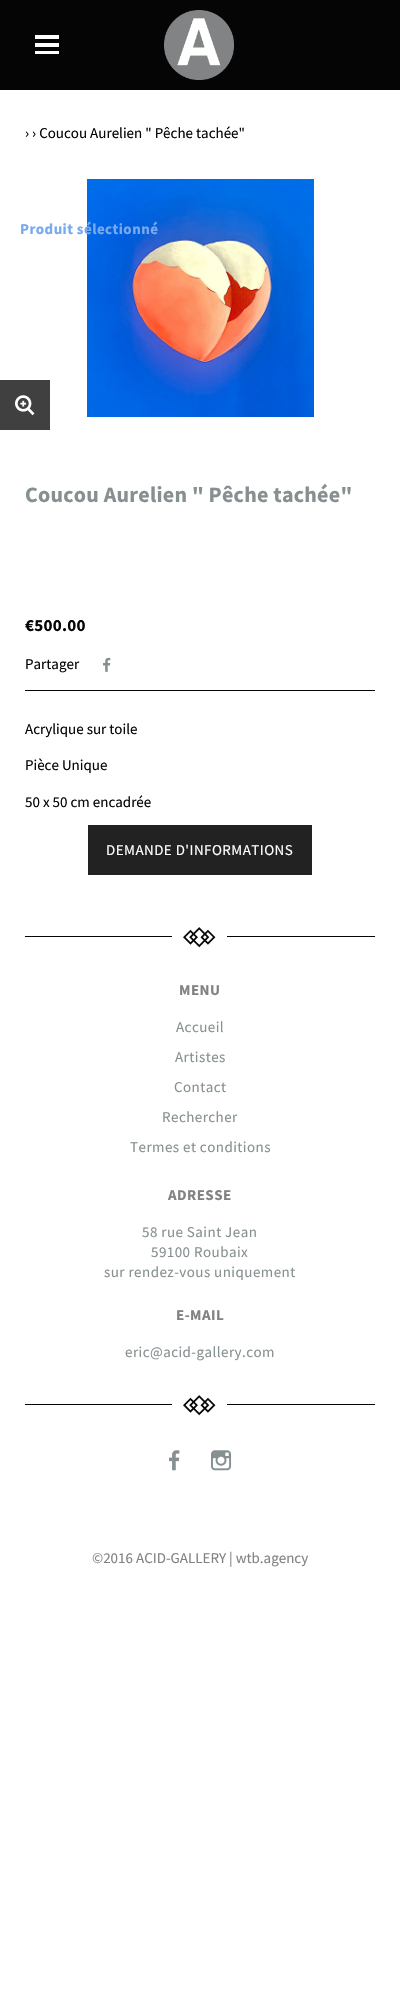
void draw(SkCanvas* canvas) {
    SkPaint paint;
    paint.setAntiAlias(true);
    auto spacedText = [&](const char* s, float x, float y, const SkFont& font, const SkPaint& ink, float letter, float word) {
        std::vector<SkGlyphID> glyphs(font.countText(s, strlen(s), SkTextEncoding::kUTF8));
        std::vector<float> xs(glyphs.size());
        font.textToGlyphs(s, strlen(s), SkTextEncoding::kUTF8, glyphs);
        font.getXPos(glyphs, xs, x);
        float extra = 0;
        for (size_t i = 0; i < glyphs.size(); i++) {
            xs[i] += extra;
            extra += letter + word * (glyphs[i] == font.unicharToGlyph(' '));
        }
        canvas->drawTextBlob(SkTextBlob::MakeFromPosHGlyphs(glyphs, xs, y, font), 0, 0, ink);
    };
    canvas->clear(0xFFFFFFFF);
    paint.setColor(0xFF050505);
    canvas->drawRect(SkRect::MakeXYWH(0, 0, 400, 90), paint);
    paint.setColor(0xFFFFFFFF);
    canvas->drawRect(SkRect::MakeXYWH(35, 43, 24, 4), paint);
    canvas->drawRect(SkRect::MakeXYWH(35, 35, 24, 4), paint);
    canvas->drawRect(SkRect::MakeXYWH(35, 51, 24, 3), paint);
    canvas->drawImageRect(SkImages::DeferredFromEncodedData(SkData::MakeFromFileName("img1.png")), SkRect::MakeXYWH(164, 10, 70, 70), SkSamplingOptions());
    SkFont font1(fontMgr->matchFamilyStyle("Source Sans Pro", SkFontStyle::Normal()), 15);
    font1.setSubpixel(true);
    paint.setColor(0xFF050505);
    canvas->drawString("› › Coucou Aurelien \" Pêche tachée\"", 25, 138, font1, paint);
    canvas->drawImageRect(SkImages::DeferredFromEncodedData(SkData::MakeFromFileName("img2.png")), SkRect::MakeXYWH(87, 179, 227, 238), SkSamplingOptions());
    SkFont font2(fontMgr->matchFamilyStyle("Source Sans Pro", SkFontStyle::Bold()), 15);
    font2.setSubpixel(true);
    paint.setColor(0xFF78AAEE);
    spacedText("Produit sélectionné", 20, 234, font2, paint, 0.45f, 0);
    paint.setColor(0xFF404040);
    canvas->drawRect(SkRect::MakeXYWH(0, 380, 50, 50), paint);
    canvas->drawImageRect(SkImages::DeferredFromEncodedData(SkData::MakeFromFileName("img3.png")), SkRect::MakeXYWH(15, 395, 20, 21), SkSamplingOptions());
    SkFont font3(fontMgr->matchFamilyStyle("Source Sans Pro", SkFontStyle::Bold()), 22);
    font3.setSubpixel(true);
    paint.setColor(0xFF879091);
    spacedText("Coucou Aurelien \" Pêche tachée\"", 25, 502, font3, paint, 0.25f, 0);
    SkFont font4(fontMgr->matchFamilyStyle("Source Sans Pro", SkFontStyle::Bold()), 17);
    font4.setSubpixel(true);
    paint.setColor(0xFF050505);
    spacedText("€500.00", 25, 631, font4, paint, 0.25f, 0);
    canvas->drawString("Partager", 25, 669, font1, paint);
    canvas->drawImageRect(SkImages::DeferredFromEncodedData(SkData::MakeFromFileName("img4.png")), SkRect::MakeXYWH(103, 657, 8, 15), SkSamplingOptions());
    canvas->drawRect(SkRect::MakeXYWH(25, 690, 350, 1), paint);
    canvas->drawString("Acrylique sur toile", 25, 734, font1, paint);
    canvas->drawString("Pièce Unique", 25, 770, font1, paint);
    canvas->drawString("50 x 50 cm encadrée", 25, 807, font1, paint);
    paint.setColor(0xFF222222);
    canvas->drawRect(SkRect::MakeXYWH(88, 825, 224, 50), paint);
    paint.setColor(0xFFFFFFFF);
    spacedText("DEMANDE D'INFORMATIONS", 106, 855, font1, paint, 0.45f, 0);
    paint.setColor(0xFF050505);
    canvas->drawRect(SkRect::MakeXYWH(25, 936, 350, 1), paint);
    paint.setColor(0xFFFFFFFF);
    canvas->drawRect(SkRect::MakeXYWH(172, 936, 55, 1), paint);
    canvas->drawImageRect(SkImages::DeferredFromEncodedData(SkData::MakeFromFileName("img5.png")), SkRect::MakeXYWH(183, 927, 33, 21), SkSamplingOptions());
    paint.setColor(0xFF828282);
    spacedText("MENU", 179, 995, font2, paint, 0.45f, 0);
    paint.setColor(0xFF879091);
    spacedText("Accueil", 176, 1032, font1, paint, 0.45f, 0);
    spacedText("Artistes", 175, 1062, font1, paint, 0.45f, 0);
    spacedText("Contact", 174, 1092, font1, paint, 0.45f, 0);
    spacedText("Rechercher", 162, 1122, font1, paint, 0.45f, 0);
    spacedText("Termes et conditions", 130, 1152, font1, paint, 0.45f, 0);
    paint.setColor(0xFF828282);
    spacedText("ADRESSE", 168, 1200, font2, paint, 0.45f, 0);
    paint.setColor(0xFF879091);
    spacedText("58 rue Saint Jean", 142, 1237, font1, paint, 0.45f, 0);
    spacedText("59100 Roubaix", 151, 1257, font1, paint, 0.45f, 0);
    spacedText("sur rendez-vous uniquement", 104, 1277, font1, paint, 0.45f, 0);
    paint.setColor(0xFF828282);
    spacedText("E-MAIL", 176, 1320, font2, paint, 0.45f, 0);
    paint.setColor(0xFF879091);
    spacedText("eric@acid-gallery.com", 125, 1357, font1, paint, 0.45f, 0);
    paint.setColor(0xFF050505);
    canvas->drawRect(SkRect::MakeXYWH(25, 1404, 350, 1), paint);
    paint.setColor(0xFFFFFFFF);
    canvas->drawRect(SkRect::MakeXYWH(172, 1404, 55, 1), paint);
    canvas->drawImageRect(SkImages::DeferredFromEncodedData(SkData::MakeFromFileName("img5.png")), SkRect::MakeXYWH(183, 1395, 33, 21), SkSamplingOptions());
    canvas->drawImageRect(SkImages::DeferredFromEncodedData(SkData::MakeFromFileName("img6.png")), SkRect::MakeXYWH(169, 1450, 11, 21), SkSamplingOptions());
    canvas->drawImageRect(SkImages::DeferredFromEncodedData(SkData::MakeFromFileName("img7.png")), SkRect::MakeXYWH(211, 1450, 21, 21), SkSamplingOptions());
    paint.setColor(0xFF828282);
    canvas->drawString("©2016 ACID-GALLERY | wtb.agency", 92, 1563, font1, paint);
}
